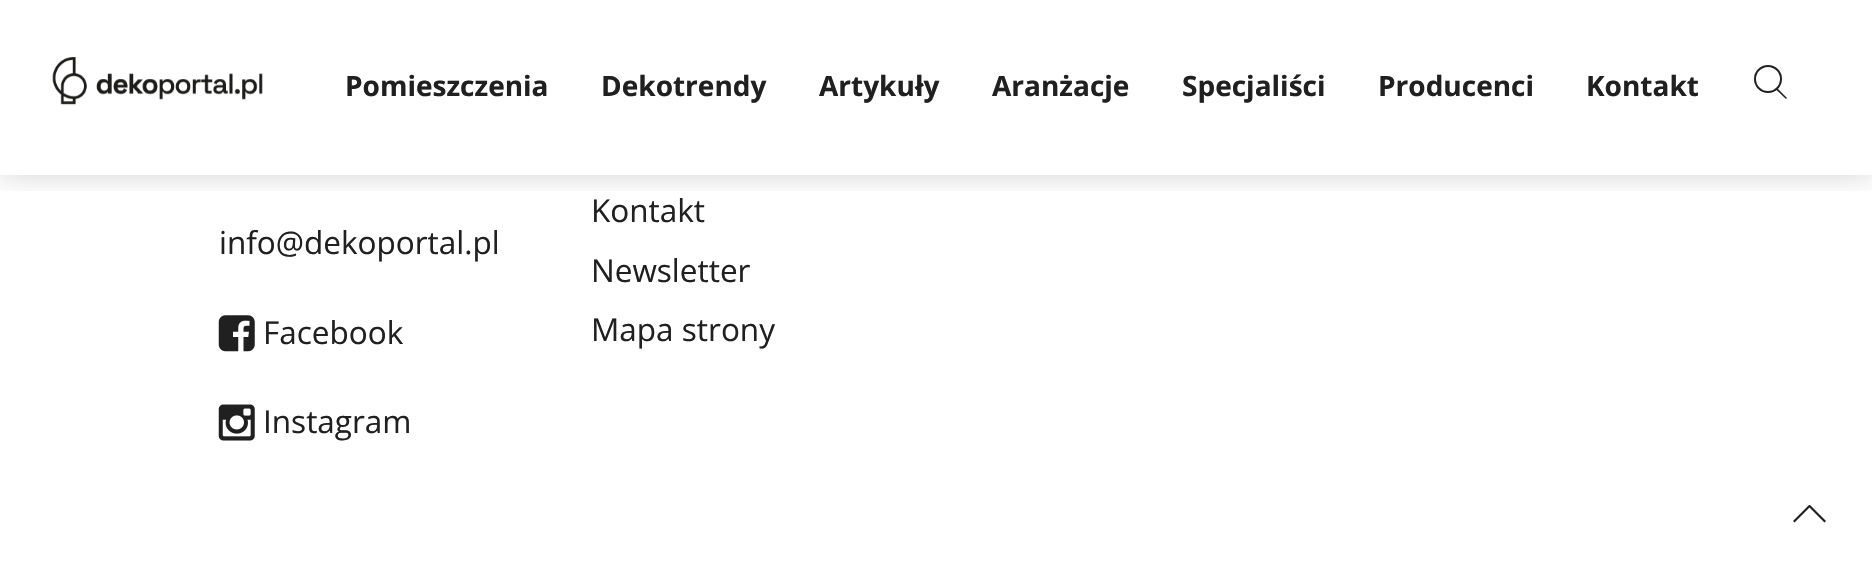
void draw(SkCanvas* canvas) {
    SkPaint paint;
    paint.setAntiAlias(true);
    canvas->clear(0xFFFFFFFF);
    canvas->save();
    canvas->clipRect(SkRect::MakeXYWH(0, 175, 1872, 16));
    paint.setColor(0x26000000);
    paint.setMaskFilter(SkMaskFilter::MakeBlur(kNormal_SkBlurStyle, 13));
    canvas->drawRect(SkRect::MakeXYWH(0, 2, 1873, 175), paint);
    paint.setMaskFilter(nullptr);
    canvas->restore();
    canvas->drawImageRect(SkImages::DeferredFromEncodedData(SkData::MakeFromFileName("img1.png")), SkRect::MakeXYWH(52, 57, 211, 48), SkSamplingOptions());
    SkFont font1(fontMgr->matchFamilyStyle("Open Sans", SkFontStyle::Bold()), 28);
    font1.setSubpixel(true);
    paint.setColor(0xFF202020);
    canvas->drawString("Pomieszczenia", 345, 96, font1, paint);
    canvas->drawString("Dekotrendy", 601, 96, font1, paint);
    canvas->drawString("Artykuły", 819, 96, font1, paint);
    canvas->drawString("Aranżacje", 992, 96, font1, paint);
    canvas->drawString("Specjaliści", 1182, 96, font1, paint);
    canvas->drawString("Producenci", 1378, 96, font1, paint);
    canvas->drawString("Kontakt", 1586, 96, font1, paint);
    paint.setStyle(SkPaint::kStroke_Style);
    paint.setStrokeWidth(2);
    canvas->drawCircle(1768, 79, 13, paint);
    paint.setStyle(SkPaint::kFill_Style);
    canvas->drawPath(SkPathBuilder().moveTo(1777, 88).lineTo(1787, 98).lineTo(1786, 99).lineTo(1776, 89.5f).close().detach(), paint);
    SkFont font2(fontMgr->matchFamilyStyle("Open Sans", SkFontStyle::Normal()), 31.5f);
    font2.setSubpixel(true);
    canvas->drawString("info@dekoportal.pl", 219, 254, font2, paint);
    canvas->drawImageRect(SkImages::DeferredFromEncodedData(SkData::MakeFromFileName("img2.png")), SkRect::MakeXYWH(218, 315, 37, 37), SkSamplingOptions());
    canvas->drawString("Facebook", 263, 344, font2, paint);
    canvas->drawImageRect(SkImages::DeferredFromEncodedData(SkData::MakeFromFileName("img3.png")), SkRect::MakeXYWH(218, 404, 37, 37), SkSamplingOptions());
    canvas->drawString("Instagram", 263, 433, font2, paint);
    canvas->drawString("Kontakt", 591, 222, font2, paint);
    canvas->drawString("Newsletter", 591, 282, font2, paint);
    canvas->drawString("Mapa strony", 591, 341, font2, paint);
    canvas->drawPath(SkPathBuilder().moveTo(1826, 521).lineTo(1824.5f, 522.5f).lineTo(1809.5f, 507.5f).lineTo(1794.5f, 522.5f).lineTo(1793, 521).lineTo(1809, 505).lineTo(1810, 505).close().detach(), paint);
}
